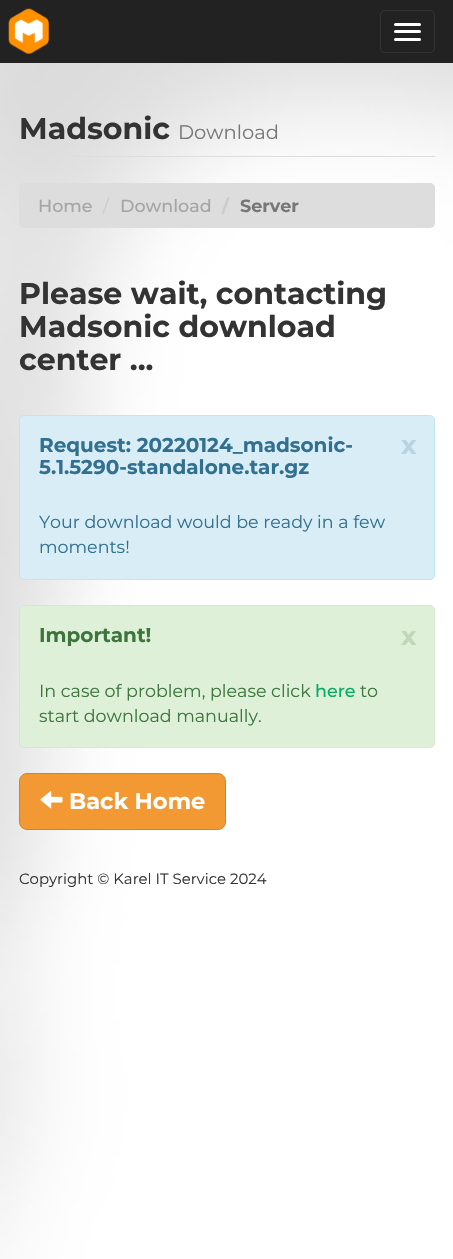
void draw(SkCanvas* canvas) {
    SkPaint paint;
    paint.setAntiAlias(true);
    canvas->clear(0xFFFFFFFF);
    canvas->drawImageRect(SkImages::DeferredFromEncodedData(SkData::MakeFromFileName("img1.png")), SkRect::MakeXYWH(0, 63, 453, 1196), SkSamplingOptions());
    paint.setColor(0xFF222222);
    canvas->drawRect(SkRect::MakeXYWH(0, 0, 453, 63), paint);
    canvas->drawImageRect(SkImages::DeferredFromEncodedData(SkData::MakeFromFileName("img2.png")), SkRect::MakeXYWH(8, 8, 41, 46), SkSamplingOptions());
    paint.setStyle(SkPaint::kStroke_Style);
    paint.setStrokeWidth(1);
    paint.setColor(0xFF333333);
    canvas->drawRoundRect(SkRect::MakeXYWH(380.5f, 10.5f, 54, 42), 4.5f, 4.5f, paint);
    paint.setStyle(SkPaint::kFill_Style);
    paint.setColor(0xFFFFFFFF);
    canvas->drawRoundRect(SkRect::MakeXYWH(394, 23, 27, 3), 1.5f, 1.5f, paint);
    canvas->drawRoundRect(SkRect::MakeXYWH(394, 30, 27, 3), 1.5f, 1.5f, paint);
    canvas->drawRoundRect(SkRect::MakeXYWH(394, 38, 27, 3), 1.5f, 1.5f, paint);
    paint.setColor(0xFFDDDDDD);
    canvas->drawRect(SkRect::MakeXYWH(69, 156, 366, 1), paint);
    SkFont font1(fontMgr->matchFamilyStyle("Montserrat", SkFontStyle::Bold()), 30);
    font1.setSubpixel(true);
    paint.setColor(0xFF333333);
    canvas->drawString("Madsonic", 19, 139, font1, paint);
    SkFont font2(fontMgr->matchFamilyStyle("Montserrat", SkFontStyle::Normal()), 19.5f);
    font2.setSubpixel(true);
    paint.setColor(0xFF777777);
    canvas->drawString("Download", 178, 139, font2, paint);
    paint.setColor(0xFFDDDDDD);
    canvas->drawRoundRect(SkRect::MakeXYWH(19, 183, 416, 45), 5, 5, paint);
    SkFont font3(fontMgr->matchFamilyStyle("Montserrat", SkFontStyle(500, SkFontStyle::kNormal_Width, SkFontStyle::kUpright_Slant)), 17.5f);
    font3.setSubpixel(true);
    paint.setColor(0xFFA5A5A5);
    canvas->drawString("Home", 38, 212, font3, paint);
    SkFont font4(fontMgr->matchFamilyStyle("Montserrat", SkFontStyle::Normal()), 17.5f);
    font4.setSubpixel(true);
    paint.setColor(0xFFCCCCCC);
    canvas->drawString("/", 103, 212, font4, paint);
    paint.setColor(0xFFA5A5A5);
    canvas->drawString("Download", 120, 212, font3, paint);
    SkFont font5(fontMgr->matchFamilyStyle("Montserrat", SkFontStyle::Bold()), 17.5f);
    font5.setSubpixel(true);
    paint.setColor(0xFFCCCCCC);
    canvas->drawString("/", 222, 212, font5, paint);
    paint.setColor(0xFF777777);
    canvas->drawString("Server", 240, 212, font5, paint);
    paint.setColor(0xFF333333);
    canvas->drawString("Please wait, contacting", 19, 304, font1, paint);
    canvas->drawString("Madsonic download", 19, 337, font1, paint);
    canvas->drawString("center ...", 19, 370, font1, paint);
    paint.setColor(0xFFD9EDF7);
    canvas->drawRoundRect(SkRect::MakeXYWH(19.5f, 415.5f, 415, 164), 4.5f, 4.5f, paint);
    paint.setStyle(SkPaint::kStroke_Style);
    paint.setColor(0xFFBCE8F1);
    canvas->drawRoundRect(SkRect::MakeXYWH(19.5f, 415.5f, 415, 164), 4.5f, 4.5f, paint);
    SkFont font6(fontMgr->matchFamilyStyle("Montserrat", SkFontStyle::Bold()), 20);
    font6.setSubpixel(true);
    paint.setStyle(SkPaint::kFill_Style);
    paint.setColor(0xFF31708F);
    canvas->drawString("Request: 20220124_madsonic-", 39, 452, font6, paint);
    canvas->drawString("5.1.5290-standalone.tar.gz", 39, 474, font6, paint);
    SkFont font7(fontMgr->matchFamilyStyle("Montserrat", SkFontStyle::Bold()), 26);
    font7.setSubpixel(true);
    paint.setColor(0xFFB7D4E2);
    canvas->drawString("x", 401, 454, font7, paint);
    paint.setColor(0xFF31708F);
    canvas->drawString("Your download would be ready in a few", 39, 528, font4, paint);
    canvas->drawString("moments!", 39, 553, font4, paint);
    paint.setColor(0xFFDFF0D8);
    canvas->drawRoundRect(SkRect::MakeXYWH(19.5f, 605.5f, 415, 142), 4.5f, 4.5f, paint);
    paint.setStyle(SkPaint::kStroke_Style);
    paint.setColor(0xFFD6E9C6);
    canvas->drawRoundRect(SkRect::MakeXYWH(19.5f, 605.5f, 415, 142), 4.5f, 4.5f, paint);
    paint.setStyle(SkPaint::kFill_Style);
    paint.setColor(0xFF3C763D);
    canvas->drawString("Important!", 39, 642, font6, paint);
    paint.setColor(0xFFBED8B9);
    canvas->drawString("x", 401, 645, font7, paint);
    paint.setColor(0xFF3C763D);
    canvas->drawString("In case of problem, please click", 39, 697, font4, paint);
    paint.setColor(0xFF09AD62);
    canvas->drawString("here", 315, 697, font3, paint);
    paint.setColor(0xFF3C763D);
    canvas->drawString("to", 360, 697, font4, paint);
    canvas->drawString("start download manually.", 39, 722, font4, paint);
    paint.setColor(0xFFF29934);
    canvas->drawRoundRect(SkRect::MakeXYWH(19.5f, 773.5f, 206, 56), 7.5f, 7.5f, paint);
    paint.setStyle(SkPaint::kStroke_Style);
    paint.setColor(0xFFD58512);
    canvas->drawRoundRect(SkRect::MakeXYWH(19.5f, 773.5f, 206, 56), 7.5f, 7.5f, paint);
    canvas->drawImageRect(SkImages::DeferredFromEncodedData(SkData::MakeFromFileName("img3.png")), SkRect::MakeXYWH(40, 791, 23, 18), SkSamplingOptions());
    SkFont font8(fontMgr->matchFamilyStyle("Montserrat", SkFontStyle::Bold()), 22.5f);
    font8.setSubpixel(true);
    paint.setStyle(SkPaint::kFill_Style);
    paint.setColor(0xFFFFFFFF);
    canvas->drawString("Back Home", 69, 809, font8, paint);
    SkFont font9(fontMgr->matchFamilyStyle("Montserrat", SkFontStyle::Normal()), 14.9f);
    font9.setSubpixel(true);
    paint.setColor(0xFF333333);
    canvas->drawString("Copyright © Karel IT Service 2024", 19, 884, font9, paint);
}
